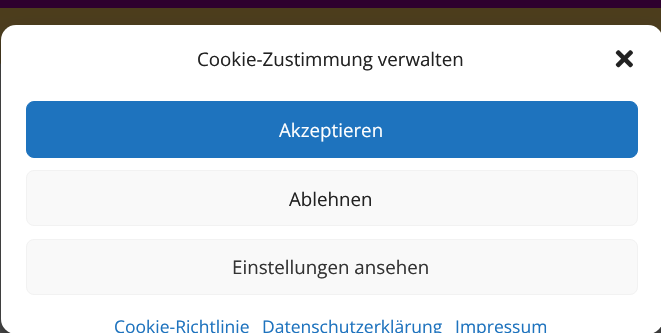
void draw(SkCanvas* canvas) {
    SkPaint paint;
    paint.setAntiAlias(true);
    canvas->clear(0xFF4D4D4D);
    paint.setColor(0x26000000);
    paint.setMaskFilter(SkMaskFilter::MakeBlur(kNormal_SkBlurStyle, 15.5f));
    canvas->drawRect(SkRect::MakeXYWH(0, 0, 661, 64), paint);
    paint.setMaskFilter(nullptr);
    canvas->drawImageRect(SkImages::DeferredFromEncodedData(SkData::MakeFromFileName("img1.png")), SkRect::MakeXYWH(0, 8, 661, 56), SkSamplingOptions());
    paint.setColor(0xFF2E002E);
    canvas->drawRect(SkRect::MakeXYWH(0, 0, 661, 8), paint);
    paint.setColor(0x3B000000);
    paint.setMaskFilter(SkMaskFilter::MakeBlur(kNormal_SkBlurStyle, 4));
    canvas->drawRoundRect(SkRect::MakeXYWH(1, 33, 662, 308), 15, 15, paint);
    paint.setMaskFilter(nullptr);
    paint.setColor(0x30000000);
    paint.setMaskFilter(SkMaskFilter::MakeBlur(kNormal_SkBlurStyle, 12.5f));
    canvas->drawRoundRect(SkRect::MakeXYWH(1, 38, 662, 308), 15, 15, paint);
    paint.setMaskFilter(nullptr);
    paint.setColor(0xFFFFFFFF);
    canvas->drawRoundRect(SkRect::MakeXYWH(1, 25, 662, 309), 15, 15, paint);
    SkFont font1(fontMgr->matchFamilyStyle("Open Sans", SkFontStyle::Normal()), 18.75f);
    font1.setSubpixel(true);
    paint.setColor(0xFF222222);
    canvas->drawString("Cookie-Zustimmung verwalten", 197, 66, font1, paint);
    canvas->drawImageRect(SkImages::DeferredFromEncodedData(SkData::MakeFromFileName("img2.png")), SkRect::MakeXYWH(615, 50, 18, 18), SkSamplingOptions());
    paint.setColor(0xFF1E73BE);
    canvas->drawRoundRect(SkRect::MakeXYWH(26.5f, 101.5f, 611, 56), 7.5f, 7.5f, paint);
    paint.setStyle(SkPaint::kStroke_Style);
    paint.setStrokeWidth(1);
    canvas->drawRoundRect(SkRect::MakeXYWH(26.5f, 101.5f, 611, 56), 7.5f, 7.5f, paint);
    paint.setStyle(SkPaint::kFill_Style);
    paint.setColor(0xFFFFFFFF);
    canvas->drawString("Akzeptieren", 279, 137, font1, paint);
    paint.setColor(0xFFF9F9F9);
    canvas->drawRoundRect(SkRect::MakeXYWH(26.5f, 170.5f, 611, 55), 7.5f, 7.5f, paint);
    paint.setStyle(SkPaint::kStroke_Style);
    paint.setColor(0xFFF2F2F2);
    canvas->drawRoundRect(SkRect::MakeXYWH(26.5f, 170.5f, 611, 55), 7.5f, 7.5f, paint);
    paint.setStyle(SkPaint::kFill_Style);
    paint.setColor(0xFF222222);
    canvas->drawString("Ablehnen", 289, 206, font1, paint);
    paint.setColor(0xFFF9F9F9);
    canvas->drawRoundRect(SkRect::MakeXYWH(26.5f, 239.5f, 611, 55), 7.5f, 7.5f, paint);
    paint.setStyle(SkPaint::kStroke_Style);
    paint.setColor(0xFFF2F2F2);
    canvas->drawRoundRect(SkRect::MakeXYWH(26.5f, 239.5f, 611, 55), 7.5f, 7.5f, paint);
    paint.setStyle(SkPaint::kFill_Style);
    paint.setColor(0xFF333333);
    canvas->drawString("Einstellungen ansehen", 232, 274, font1, paint);
    SkFont font2(fontMgr->matchFamilyStyle("Open Sans", SkFontStyle::Normal()), 17.5f);
    font2.setSubpixel(true);
    paint.setColor(0xFF1E73BE);
    canvas->drawString("Cookie-Richtlinie", 114, 333, font2, paint);
    canvas->drawString("Datenschutzerklärung", 262, 333, font2, paint);
    canvas->drawString("Impressum", 455, 333, font2, paint);
}
